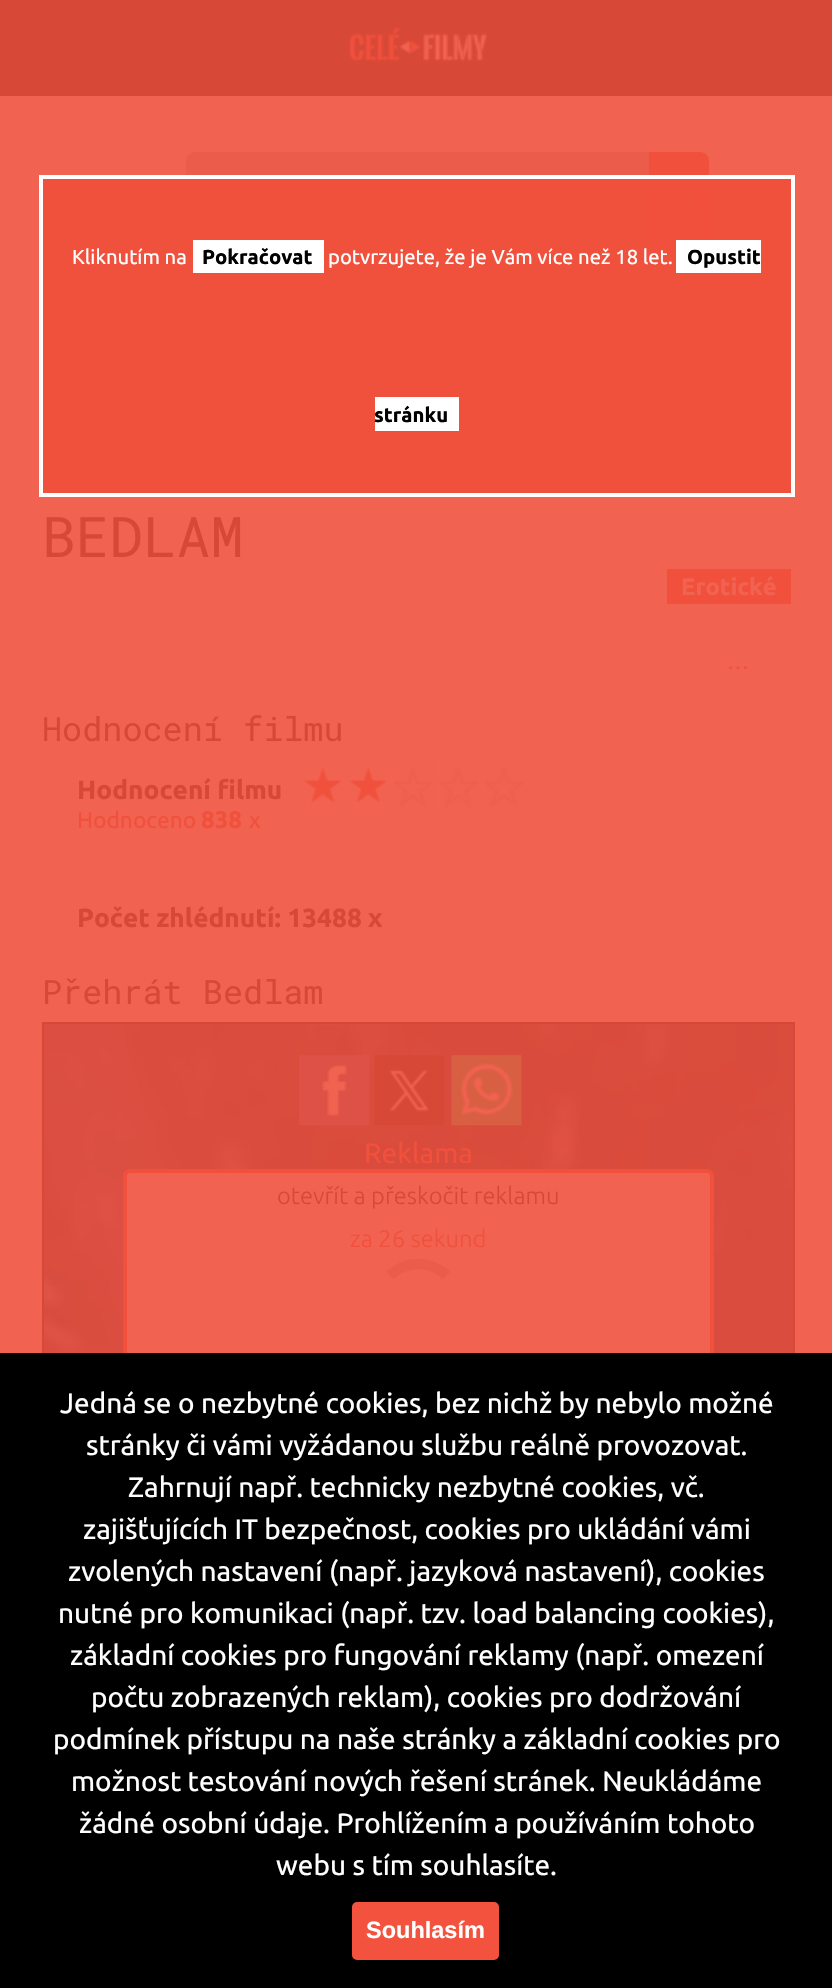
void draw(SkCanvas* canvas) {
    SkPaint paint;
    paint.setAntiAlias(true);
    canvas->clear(0xFFF26250);
    paint.setColor(0xFFD84836);
    canvas->drawRect(SkRect::MakeXYWH(0, 0, 832, 96), paint);
    canvas->drawImageRect(SkImages::DeferredFromEncodedData(SkData::MakeFromFileName("img1.png")), SkRect::MakeXYWH(349, 27, 138, 35), SkSamplingOptions());
    paint.setColor(0xFFEC5C4A);
    canvas->drawPath(SkPathBuilder().moveTo(195, 152).lineTo(649, 152).lineTo(649, 254).lineTo(195, 254).cubicTo(190, 254, 186, 250, 186, 245).lineTo(186, 161).cubicTo(186, 156, 190, 152, 195, 152).close().detach(), paint);
    paint.setColor(0xFFF0503C);
    canvas->drawPath(SkPathBuilder().moveTo(649, 152).lineTo(700, 152).cubicTo(705, 152, 709, 156, 709, 161).lineTo(709, 245).cubicTo(709, 250, 705, 254, 700, 254).lineTo(649, 254).close().detach(), paint);
    canvas->drawImageRect(SkImages::DeferredFromEncodedData(SkData::MakeFromFileName("img2.png")), SkRect::MakeXYWH(659, 183, 38, 40), SkSamplingOptions());
    paint.setColor(0xFCF0503C);
    canvas->drawRect(SkRect::MakeXYWH(41, 177, 752, 318), paint);
    paint.setStyle(SkPaint::kStroke_Style);
    paint.setStrokeWidth(4);
    paint.setColor(0xFFFFFFFF);
    canvas->drawRect(SkRect::MakeXYWH(41, 177, 752, 318), paint);
    SkFont font1(fontMgr->matchFamilyStyle("Ubuntu", SkFontStyle::Normal()), 20.25f);
    font1.setSubpixel(true);
    paint.setStyle(SkPaint::kFill_Style);
    canvas->drawString("Kliknutím na", 72, 264, font1, paint);
    canvas->drawRect(SkRect::MakeXYWH(193, 240, 131, 33), paint);
    SkFont font2(fontMgr->matchFamilyStyle("Ubuntu", SkFontStyle::Bold()), 20.25f);
    font2.setSubpixel(true);
    paint.setColor(0xFF000000);
    canvas->drawString("Pokračovat", 202, 264, font2, paint);
    paint.setColor(0xFFFFFFFF);
    canvas->drawString("potvrzujete, že je Vám více než 18 let.", 328, 264, font1, paint);
    canvas->drawRect(SkRect::MakeXYWH(676, 240, 85, 33), paint);
    paint.setColor(0xFF000000);
    canvas->drawString("Opustit", 687, 264, font2, paint);
    paint.setColor(0xFFFFFFFF);
    canvas->drawRect(SkRect::MakeXYWH(375, 397, 84, 34), paint);
    paint.setColor(0xFF000000);
    canvas->drawString("stránku", 374, 422, font2, paint);
    SkFont font3(fontMgr->matchFamilyStyle("Roboto Mono", SkFontStyle::Normal()), 56);
    font3.setSubpixel(true);
    paint.setColor(0xFFD84836);
    canvas->drawString("BEDLAM", 42, 557, font3, paint);
    paint.setColor(0xFFF0503C);
    canvas->drawRect(SkRect::MakeXYWH(667, 569, 124, 35), paint);
    SkFont font4(fontMgr->matchFamilyStyle("Ubuntu", SkFontStyle::Bold()), 23.75f);
    font4.setSubpixel(true);
    paint.setColor(0xFFF26250);
    canvas->drawString("Erotické", 681, 595, font4, paint);
    SkFont font5(fontMgr->matchFamilyStyle("Ubuntu", SkFontStyle::Normal()), 22);
    font5.setSubpixel(true);
    paint.setColor(0xFFF0503C);
    canvas->drawString("…", 727, 669, font5, paint);
    SkFont font6(fontMgr->matchFamilyStyle("Roboto Mono", SkFontStyle::Normal()), 33.5f);
    font6.setSubpixel(true);
    paint.setColor(0xFFD84836);
    canvas->drawString("Hodnocení filmu", 42, 741, font6, paint);
    paint.setColor(0xFFF0503C);
    canvas->drawRect(SkRect::MakeXYWH(302, 766, 85, 38), paint);
    SkFont font7(fontMgr->matchFamilyStyle("Ubuntu", SkFontStyle::Bold()), 26.25f);
    font7.setSubpixel(true);
    paint.setColor(0xFFD84836);
    canvas->drawString("Hodnocení filmu", 77, 799, font7, paint);
    canvas->drawImageRect(SkImages::DeferredFromEncodedData(SkData::MakeFromFileName("img7.png")), SkRect::MakeXYWH(483, 760, 44, 52), SkSamplingOptions());
    canvas->drawImageRect(SkImages::DeferredFromEncodedData(SkData::MakeFromFileName("img6.png")), SkRect::MakeXYWH(438, 760, 47, 52), SkSamplingOptions());
    canvas->drawImageRect(SkImages::DeferredFromEncodedData(SkData::MakeFromFileName("img5.png")), SkRect::MakeXYWH(386, 760, 54, 52), SkSamplingOptions());
    canvas->drawImageRect(SkImages::DeferredFromEncodedData(SkData::MakeFromFileName("img4.png")), SkRect::MakeXYWH(341, 760, 53, 52), SkSamplingOptions());
    canvas->drawImageRect(SkImages::DeferredFromEncodedData(SkData::MakeFromFileName("img3.png")), SkRect::MakeXYWH(299, 760, 43, 52), SkSamplingOptions());
    SkFont font8(fontMgr->matchFamilyStyle("Ubuntu", SkFontStyle::Normal()), 22.75f);
    font8.setSubpixel(true);
    paint.setColor(0xFFF0503C);
    canvas->drawString("Hodnoceno", 77, 828, font8, paint);
    SkFont font9(fontMgr->matchFamilyStyle("Ubuntu", SkFontStyle::Bold()), 24);
    font9.setSubpixel(true);
    canvas->drawString("838", 201, 828, font9, paint);
    canvas->drawString("x", 249, 828, font8, paint);
    paint.setColor(0xFFD84836);
    canvas->drawString("Počet zhlédnutí: 13488 x", 77, 927, font7, paint);
    canvas->drawString("Přehrát Bedlam", 42, 1004, font6, paint);
    canvas->drawImageRect(SkImages::DeferredFromEncodedData(SkData::MakeFromFileName("img8.png")), SkRect::MakeXYWH(44, 1024, 749, 329), SkSamplingOptions());
    paint.setStyle(SkPaint::kStroke_Style);
    paint.setStrokeWidth(2);
    canvas->drawRect(SkRect::MakeXYWH(43, 1023, 751, 609), paint);
    canvas->drawImageRect(SkImages::DeferredFromEncodedData(SkData::MakeFromFileName("img9.png")), SkRect::MakeXYWH(299, 1055, 71, 71), SkSamplingOptions());
    canvas->drawImageRect(SkImages::DeferredFromEncodedData(SkData::MakeFromFileName("img10.png")), SkRect::MakeXYWH(374, 1055, 71, 71), SkSamplingOptions());
    canvas->drawImageRect(SkImages::DeferredFromEncodedData(SkData::MakeFromFileName("img11.png")), SkRect::MakeXYWH(451, 1055, 71, 71), SkSamplingOptions());
    SkFont font10(fontMgr->matchFamilyStyle("Ubuntu", SkFontStyle::Normal()), 28);
    font10.setSubpixel(true);
    paint.setStyle(SkPaint::kFill_Style);
    paint.setColor(0xFFF0503C);
    canvas->drawString("Reklama", 364, 1163, font10, paint);
    paint.setColor(0xFFF26250);
    canvas->drawRoundRect(SkRect::MakeXYWH(125, 1171, 587, 441), 5, 5, paint);
    paint.setStyle(SkPaint::kStroke_Style);
    paint.setStrokeWidth(4);
    paint.setColor(0xFFF0503C);
    canvas->drawRoundRect(SkRect::MakeXYWH(125, 1171, 587, 441), 5, 5, paint);
    SkFont font11(fontMgr->matchFamilyStyle("Ubuntu", SkFontStyle(300, SkFontStyle::kNormal_Width, SkFontStyle::kUpright_Slant)), 23.75f);
    font11.setSubpixel(true);
    paint.setStyle(SkPaint::kFill_Style);
    paint.setColor(0xFFD84836);
    canvas->drawString("otevřít a přeskočit reklamu", 277, 1204, font11, paint);
    paint.setColor(0xFFF0503C);
    canvas->drawString("za 26 sekund", 350, 1247, font11, paint);
    paint.setStyle(SkPaint::kStroke_Style);
    paint.setStrokeWidth(10.5f);
    paint.setColor(0xFFEC5C4A);
    canvas->drawPath(SkPathBuilder().moveTo(390, 1275.5f).cubicTo(405.5f, 1260, 431, 1260, 446.5f, 1275.5f).detach(), paint);
    paint.setStyle(SkPaint::kFill_Style);
    paint.setColor(0xFF000000);
    canvas->drawRect(SkRect::MakeXYWH(0, 1353, 832, 635), paint);
    paint.setColor(0xFFFFFFFF);
    canvas->drawString("Jedná se o nezbytné cookies, bez nichž by nebylo možné", 60, 1413, font10, paint);
    canvas->drawString("stránky či vámi vyžádanou službu reálně provozovat.", 86, 1455, font10, paint);
    canvas->drawString("Zahrnují např. technicky nezbytné cookies, vč.", 128, 1497, font10, paint);
    canvas->drawString("zajišťujících IT bezpečnost, cookies pro ukládání vámi", 83, 1539, font10, paint);
    canvas->drawString("zvolených nastavení (např. jazyková nastavení), cookies", 68, 1581, font10, paint);
    canvas->drawString("nutné pro komunikaci (např. tzv. load balancing cookies),", 58, 1623, font10, paint);
    canvas->drawString("základní cookies pro fungování reklamy (např. omezení", 70, 1665, font10, paint);
    canvas->drawString("počtu zobrazených reklam), cookies pro dodržování", 91, 1707, font10, paint);
    canvas->drawString("podmínek přístupu na naše stránky a základní cookies pro", 53, 1749, font10, paint);
    canvas->drawString("možnost testování nových řešení stránek. Neukládáme", 71, 1791, font10, paint);
    canvas->drawString("žádné osobní údaje. Prohlížením a používáním tohoto", 79, 1833, font10, paint);
    canvas->drawString("webu s tím souhlasíte.", 276, 1875, font10, paint);
    paint.setColor(0xFFF2523E);
    canvas->drawRoundRect(SkRect::MakeXYWH(354, 1904, 143, 54), 3, 3, paint);
    paint.setStyle(SkPaint::kStroke_Style);
    paint.setStrokeWidth(4);
    canvas->drawRoundRect(SkRect::MakeXYWH(354, 1904, 143, 54), 3, 3, paint);
    SkFont font12(fontMgr->matchFamilyStyle("Liberation Sans", SkFontStyle::Bold()), 23.5f);
    font12.setSubpixel(true);
    paint.setStyle(SkPaint::kFill_Style);
    paint.setColor(0xFFFFFFFF);
    canvas->drawString("Souhlasím", 366, 1938, font12, paint);
}
